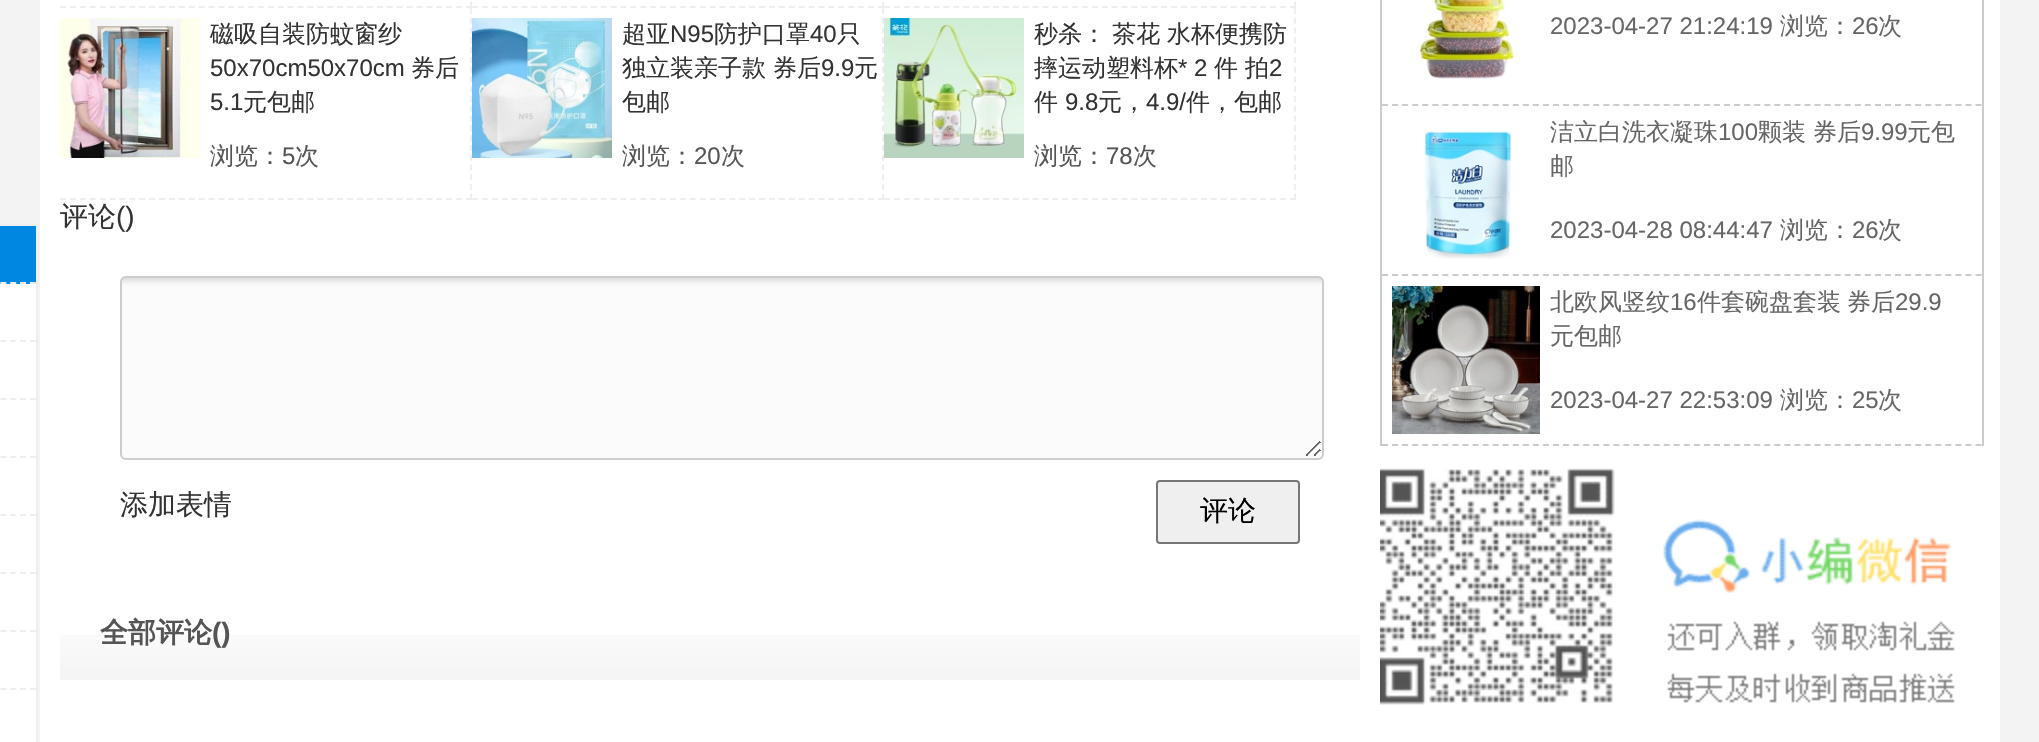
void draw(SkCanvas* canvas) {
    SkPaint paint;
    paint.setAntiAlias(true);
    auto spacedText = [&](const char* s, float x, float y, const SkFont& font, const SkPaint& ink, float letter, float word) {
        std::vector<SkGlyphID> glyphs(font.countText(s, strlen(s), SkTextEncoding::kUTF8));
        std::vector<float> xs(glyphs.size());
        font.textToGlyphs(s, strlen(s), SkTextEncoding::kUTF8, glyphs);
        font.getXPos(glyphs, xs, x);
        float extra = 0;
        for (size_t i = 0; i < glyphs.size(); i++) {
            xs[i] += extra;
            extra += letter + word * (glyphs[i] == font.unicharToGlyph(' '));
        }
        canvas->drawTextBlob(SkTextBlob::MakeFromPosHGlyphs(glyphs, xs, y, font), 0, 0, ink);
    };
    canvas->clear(0xFFF3F3F3);
    paint.setColor(0xFFFFFFFF);
    canvas->drawRect(SkRect::MakeXYWH(0, 284, 36, 458), paint);
    paint.setStyle(SkPaint::kStroke_Style);
    paint.setStrokeWidth(2);
    paint.setColor(0xFFEEEEEE);
    canvas->drawRect(SkRect::MakeXYWH(-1, 225, 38, 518), paint);
    paint.setStyle(SkPaint::kFill_Style);
    paint.setColor(0xFF0087E1);
    canvas->drawRect(SkRect::MakeXYWH(0, 226, 36, 58), paint);
    paint.setStyle(SkPaint::kStroke_Style);
    paint.setColor(0xFFEEEEEE);
    paint.setPathEffect(SkDashPathEffect::Make({{6, 3.82f}}, 0));
    canvas->drawPath(SkPathBuilder().moveTo(-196, 283).lineTo(36, 283).moveTo(-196, 341).lineTo(36, 341).detach(), paint);
    paint.setPathEffect(nullptr);
    paint.setPathEffect(SkDashPathEffect::Make({{6, 3.82f}}, 0));
    canvas->drawPath(SkPathBuilder().moveTo(-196, 399).lineTo(36, 399).moveTo(-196, 457).lineTo(36, 457).detach(), paint);
    paint.setPathEffect(nullptr);
    paint.setPathEffect(SkDashPathEffect::Make({{6, 3.82f}}, 0));
    canvas->drawPath(SkPathBuilder().moveTo(-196, 515).lineTo(36, 515).moveTo(-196, 573).lineTo(36, 573).detach(), paint);
    paint.setPathEffect(nullptr);
    paint.setPathEffect(SkDashPathEffect::Make({{6, 3.82f}}, 0));
    canvas->drawPath(SkPathBuilder().moveTo(-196, 631).lineTo(36, 631).moveTo(-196, 689).lineTo(36, 689).detach(), paint);
    paint.setPathEffect(nullptr);
    paint.setStyle(SkPaint::kFill_Style);
    paint.setColor(0xFFFFFFFF);
    canvas->drawRect(SkRect::MakeXYWH(40, 0, 1960, 742), paint);
    paint.setStyle(SkPaint::kStroke_Style);
    paint.setColor(0xFFEEEEEE);
    paint.setPathEffect(SkDashPathEffect::Make({{6, 3.78f}}, 0));
    canvas->drawPath(SkPathBuilder().moveTo(471, -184).lineTo(471, 8).detach(), paint);
    paint.setPathEffect(nullptr);
    paint.setPathEffect(SkDashPathEffect::Make({{6, 3.9f}}, 0));
    canvas->drawPath(SkPathBuilder().moveTo(60, 7).lineTo(472, 7).detach(), paint);
    paint.setPathEffect(nullptr);
    paint.setPathEffect(SkDashPathEffect::Make({{6, 3.78f}}, 0));
    canvas->drawPath(SkPathBuilder().moveTo(883, -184).lineTo(883, 8).detach(), paint);
    paint.setPathEffect(nullptr);
    paint.setPathEffect(SkDashPathEffect::Make({{6, 3.9f}}, 0));
    canvas->drawPath(SkPathBuilder().moveTo(472, 7).lineTo(884, 7).detach(), paint);
    paint.setPathEffect(nullptr);
    paint.setPathEffect(SkDashPathEffect::Make({{6, 3.78f}}, 0));
    canvas->drawPath(SkPathBuilder().moveTo(1295, -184).lineTo(1295, 8).detach(), paint);
    paint.setPathEffect(nullptr);
    paint.setPathEffect(SkDashPathEffect::Make({{6, 3.9f}}, 0));
    canvas->drawPath(SkPathBuilder().moveTo(884, 7).lineTo(1296, 7).detach(), paint);
    paint.setPathEffect(nullptr);
    paint.setPathEffect(SkDashPathEffect::Make({{6, 3.78f}}, 0));
    canvas->drawPath(SkPathBuilder().moveTo(471, 8).lineTo(471, 200).detach(), paint);
    paint.setPathEffect(nullptr);
    paint.setPathEffect(SkDashPathEffect::Make({{6, 3.9f}}, 0));
    canvas->drawPath(SkPathBuilder().moveTo(60, 199).lineTo(472, 199).detach(), paint);
    paint.setPathEffect(nullptr);
    canvas->drawImageRect(SkImages::DeferredFromEncodedData(SkData::MakeFromFileName("img1.png")), SkRect::MakeXYWH(60, 18, 140, 140), SkSamplingOptions());
    SkFont font1(fontMgr->matchFamilyStyle("WenQuanYi Zen Hei", SkFontStyle(500, SkFontStyle::kNormal_Width, SkFontStyle::kUpright_Slant)), 24);
    font1.setSubpixel(true);
    paint.setStyle(SkPaint::kFill_Style);
    paint.setColor(0xFF333333);
    canvas->drawString("磁吸自装防蚊窗纱", 210, 42, font1, paint);
    SkFont font2(fontMgr->matchFamilyStyle("Liberation Sans", SkFontStyle::Normal()), 24);
    font2.setSubpixel(true);
    canvas->drawString("50x70cm50x70cm", 210, 76, font2, paint);
    canvas->drawString("券后", 411, 76, font1, paint);
    canvas->drawString("5.1", 210, 110, font2, paint);
    canvas->drawString("元包邮", 243, 110, font1, paint);
    paint.setColor(0xFF555555);
    canvas->drawString("浏览：", 210, 164, font1, paint);
    canvas->drawString("5", 282, 164, font2, paint);
    canvas->drawString("次", 295, 164, font1, paint);
    paint.setStyle(SkPaint::kStroke_Style);
    paint.setColor(0xFFEEEEEE);
    paint.setPathEffect(SkDashPathEffect::Make({{6, 3.78f}}, 0));
    canvas->drawPath(SkPathBuilder().moveTo(883, 8).lineTo(883, 200).detach(), paint);
    paint.setPathEffect(nullptr);
    paint.setPathEffect(SkDashPathEffect::Make({{6, 3.9f}}, 0));
    canvas->drawPath(SkPathBuilder().moveTo(472, 199).lineTo(884, 199).detach(), paint);
    paint.setPathEffect(nullptr);
    canvas->drawImageRect(SkImages::DeferredFromEncodedData(SkData::MakeFromFileName("img2.png")), SkRect::MakeXYWH(472, 18, 140, 140), SkSamplingOptions());
    paint.setStyle(SkPaint::kFill_Style);
    paint.setColor(0xFF333333);
    canvas->drawString("超亚", 622, 42, font1, paint);
    canvas->drawString("N95", 670, 42, font2, paint);
    canvas->drawString("防护口罩", 714, 42, font1, paint);
    canvas->drawString("40", 810, 42, font2, paint);
    canvas->drawString("只", 837, 42, font1, paint);
    canvas->drawString("独立装亲子款", 622, 76, font1, paint);
    canvas->drawString("券后", 773, 76, font1, paint);
    canvas->drawString("9.9", 821, 76, font2, paint);
    canvas->drawString("元", 854, 76, font1, paint);
    canvas->drawString("包邮", 622, 110, font1, paint);
    paint.setColor(0xFF555555);
    canvas->drawString("浏览：", 622, 164, font1, paint);
    canvas->drawString("20", 694, 164, font2, paint);
    canvas->drawString("次", 721, 164, font1, paint);
    paint.setStyle(SkPaint::kStroke_Style);
    paint.setColor(0xFFEEEEEE);
    paint.setPathEffect(SkDashPathEffect::Make({{6, 3.78f}}, 0));
    canvas->drawPath(SkPathBuilder().moveTo(1295, 8).lineTo(1295, 200).detach(), paint);
    paint.setPathEffect(nullptr);
    paint.setPathEffect(SkDashPathEffect::Make({{6, 3.9f}}, 0));
    canvas->drawPath(SkPathBuilder().moveTo(884, 199).lineTo(1296, 199).detach(), paint);
    paint.setPathEffect(nullptr);
    canvas->drawImageRect(SkImages::DeferredFromEncodedData(SkData::MakeFromFileName("img3.png")), SkRect::MakeXYWH(884, 18, 140, 140), SkSamplingOptions());
    paint.setStyle(SkPaint::kFill_Style);
    paint.setColor(0xFF333333);
    spacedText("秒杀： 茶花", 1034, 42, font1, paint, 0, -1);
    canvas->drawString("水杯便携防", 1167, 42, font1, paint);
    canvas->drawString("摔运动塑料杯", 1034, 76, font1, paint);
    canvas->drawString("* 2", 1178, 76, font2, paint);
    canvas->drawString("件", 1214, 76, font1, paint);
    canvas->drawString("拍", 1245, 76, font1, paint);
    canvas->drawString("2", 1269, 76, font2, paint);
    canvas->drawString("件", 1034, 110, font1, paint);
    canvas->drawString("9.8", 1065, 110, font2, paint);
    canvas->drawString("元，", 1098, 110, font1, paint);
    canvas->drawString("4.9/", 1146, 110, font2, paint);
    canvas->drawString("件，包邮", 1186, 110, font1, paint);
    paint.setColor(0xFF555555);
    canvas->drawString("浏览：", 1034, 164, font1, paint);
    canvas->drawString("78", 1106, 164, font2, paint);
    canvas->drawString("次", 1133, 164, font1, paint);
    SkFont font3(fontMgr->matchFamilyStyle("WenQuanYi Zen Hei", SkFontStyle(500, SkFontStyle::kNormal_Width, SkFontStyle::kUpright_Slant)), 28);
    font3.setSubpixel(true);
    paint.setColor(0xFF333333);
    canvas->drawString("评论", 60, 226, font3, paint);
    SkFont font4(fontMgr->matchFamilyStyle("Liberation Sans", SkFontStyle::Normal()), 28);
    font4.setSubpixel(true);
    canvas->drawString("()", 116, 226, font4, paint);
    paint.setColor(0xFFFBFBFB);
    canvas->drawRoundRect(SkRect::MakeXYWH(120, 276, 1204, 184), 6, 6, paint);
    canvas->drawImageRect(SkImages::DeferredFromEncodedData(SkData::MakeFromFileName("img4.png")), SkRect::MakeXYWH(120, 278, 1204, 178), SkSamplingOptions());
    paint.setStyle(SkPaint::kStroke_Style);
    paint.setColor(0xFFCCCCCC);
    canvas->drawRoundRect(SkRect::MakeXYWH(121, 277, 1202, 182), 5, 5, paint);
    paint.setStyle(SkPaint::kFill_Style);
    paint.setColor(0xFF333333);
    canvas->drawString("添加表情", 120, 514, font3, paint);
    paint.setColor(0xFFEFEFEF);
    canvas->drawRoundRect(SkRect::MakeXYWH(1157, 481, 142, 62), 3, 3, paint);
    paint.setStyle(SkPaint::kStroke_Style);
    paint.setColor(0xFF767676);
    canvas->drawRoundRect(SkRect::MakeXYWH(1157, 481, 142, 62), 3, 3, paint);
    paint.setStyle(SkPaint::kFill_Style);
    paint.setColor(0xFF000000);
    canvas->drawString("评论", 1200, 520, font3, paint);
    canvas->drawImageRect(SkImages::DeferredFromEncodedData(SkData::MakeFromFileName("img5.png")), SkRect::MakeXYWH(60, 635, 1300, 45), SkSamplingOptions());
    SkFont font5(fontMgr->matchFamilyStyle("WenQuanYi Zen Hei", SkFontStyle::Bold()), 28);
    font5.setSubpixel(true);
    paint.setColor(0xFF555555);
    canvas->drawString("全部评论", 100, 642, font5, paint);
    SkFont font6(fontMgr->matchFamilyStyle("Liberation Sans", SkFontStyle::Bold()), 28);
    font6.setSubpixel(true);
    canvas->drawString("()", 212, 642, font6, paint);
    paint.setColor(0xFFCCCCCC);
    canvas->drawRect(SkRect::MakeXYWH(1982, 0, 2, 446), paint);
    canvas->drawRect(SkRect::MakeXYWH(1380, 0, 2, 446), paint);
    paint.setStyle(SkPaint::kStroke_Style);
    paint.setPathEffect(SkDashPathEffect::Make({{6, 4.06f}}, 0));
    canvas->drawPath(SkPathBuilder().moveTo(1382, 105).lineTo(1982, 105).detach(), paint);
    paint.setPathEffect(nullptr);
    canvas->drawImageRect(SkImages::DeferredFromEncodedData(SkData::MakeFromFileName("img6.png")), SkRect::MakeXYWH(1419, 0, 96, 79), SkSamplingOptions());
    paint.setStyle(SkPaint::kFill_Style);
    paint.setColor(0xFF666666);
    canvas->drawString("2023-04-27 21:24:19", 1550, 34, font2, paint);
    canvas->drawString("浏览：", 1780, 34, font1, paint);
    canvas->drawString("26", 1852, 34, font2, paint);
    canvas->drawString("次", 1878, 34, font1, paint);
    paint.setStyle(SkPaint::kStroke_Style);
    paint.setColor(0xFFCCCCCC);
    paint.setPathEffect(SkDashPathEffect::Make({{6, 4.06f}}, 0));
    canvas->drawPath(SkPathBuilder().moveTo(1382, 275).lineTo(1982, 275).detach(), paint);
    paint.setPathEffect(nullptr);
    canvas->drawImageRect(SkImages::DeferredFromEncodedData(SkData::MakeFromFileName("img7.png")), SkRect::MakeXYWH(1424, 131, 88, 128), SkSamplingOptions());
    paint.setStyle(SkPaint::kFill_Style);
    paint.setColor(0xFF666666);
    canvas->drawString("洁立白洗衣凝珠", 1550, 140, font1, paint);
    canvas->drawString("100", 1718, 140, font2, paint);
    canvas->drawString("颗装", 1758, 140, font1, paint);
    canvas->drawString("券后", 1813, 140, font1, paint);
    canvas->drawString("9.99", 1861, 140, font2, paint);
    canvas->drawString("元包", 1907, 140, font1, paint);
    canvas->drawString("邮", 1550, 174, font1, paint);
    canvas->drawString("2023-04-28 08:44:47", 1550, 238, font2, paint);
    canvas->drawString("浏览：", 1780, 238, font1, paint);
    canvas->drawString("26", 1852, 238, font2, paint);
    canvas->drawString("次", 1878, 238, font1, paint);
    paint.setStyle(SkPaint::kStroke_Style);
    paint.setColor(0xFFCCCCCC);
    paint.setPathEffect(SkDashPathEffect::Make({{6, 4.06f}}, 0));
    canvas->drawPath(SkPathBuilder().moveTo(1382, 445).lineTo(1982, 445).detach(), paint);
    paint.setPathEffect(nullptr);
    canvas->drawImageRect(SkImages::DeferredFromEncodedData(SkData::MakeFromFileName("img8.png")), SkRect::MakeXYWH(1392, 286, 148, 148), SkSamplingOptions());
    paint.setStyle(SkPaint::kFill_Style);
    paint.setColor(0xFF666666);
    canvas->drawString("北欧风竖纹", 1550, 310, font1, paint);
    canvas->drawString("16", 1670, 310, font2, paint);
    canvas->drawString("件套碗盘套装", 1697, 310, font1, paint);
    canvas->drawString("券后", 1847, 310, font1, paint);
    canvas->drawString("29.9", 1895, 310, font2, paint);
    canvas->drawString("元包邮", 1550, 344, font1, paint);
    canvas->drawString("2023-04-27 22:53:09", 1550, 408, font2, paint);
    canvas->drawString("浏览：", 1780, 408, font1, paint);
    canvas->drawString("25", 1852, 408, font2, paint);
    canvas->drawString("次", 1878, 408, font1, paint);
    canvas->drawImageRect(SkImages::DeferredFromEncodedData(SkData::MakeFromFileName("img9.png")), SkRect::MakeXYWH(1380, 468, 575, 237), SkSamplingOptions());
}
